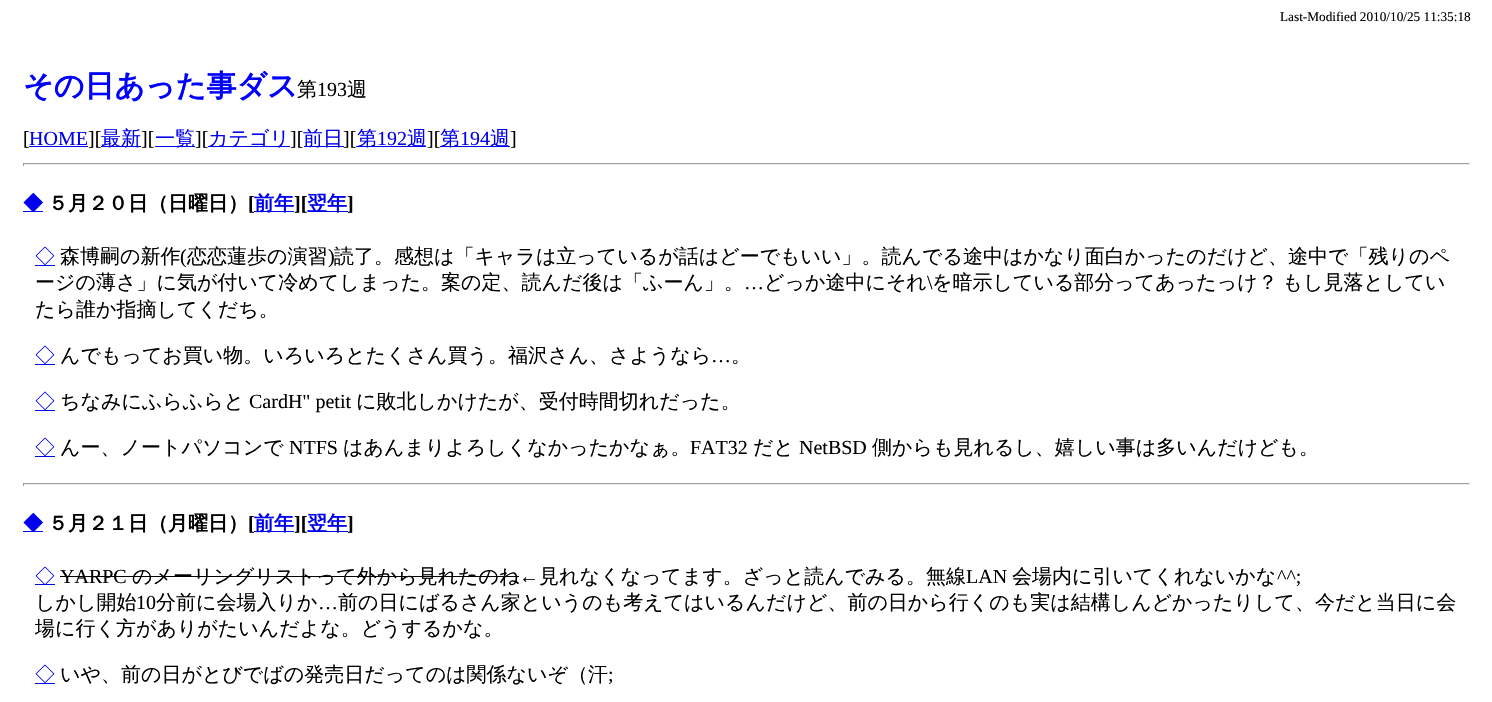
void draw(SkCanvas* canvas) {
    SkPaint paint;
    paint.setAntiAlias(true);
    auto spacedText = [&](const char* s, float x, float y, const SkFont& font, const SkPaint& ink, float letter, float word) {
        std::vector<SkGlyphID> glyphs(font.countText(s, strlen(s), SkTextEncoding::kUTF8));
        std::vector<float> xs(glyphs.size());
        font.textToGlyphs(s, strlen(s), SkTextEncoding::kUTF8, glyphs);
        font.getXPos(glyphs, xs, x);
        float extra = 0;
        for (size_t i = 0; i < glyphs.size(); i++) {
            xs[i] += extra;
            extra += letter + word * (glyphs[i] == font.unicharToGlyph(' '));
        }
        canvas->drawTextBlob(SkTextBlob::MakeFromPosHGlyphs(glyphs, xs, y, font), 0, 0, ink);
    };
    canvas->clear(0xFFFFFFFF);
    SkFont font1(fontMgr->matchFamilyStyle("Liberation Serif", SkFontStyle::Normal()), 13.25f);
    font1.setSubpixel(true);
    paint.setColor(0xFF000000);
    canvas->drawString("Last-Modified 2010/10/25 11:35:18", 1280, 21, font1, paint);
    SkFont font2(fontMgr->matchFamilyStyle("WenQuanYi Zen Hei", SkFontStyle::Bold()), 30);
    font2.setSubpixel(true);
    paint.setColor(0xFF0000FF);
    canvas->drawString("その日あった事ダス", 23, 96, font2, paint);
    SkFont font3(fontMgr->matchFamilyStyle("WenQuanYi Zen Hei", SkFontStyle(500, SkFontStyle::kNormal_Width, SkFontStyle::kUpright_Slant)), 20);
    font3.setSubpixel(true);
    paint.setColor(0xFF000000);
    canvas->drawString("第", 297, 96, font3, paint);
    SkFont font4(fontMgr->matchFamilyStyle("Liberation Serif", SkFontStyle::Normal()), 20);
    font4.setSubpixel(true);
    canvas->drawString("193", 317, 96, font4, paint);
    canvas->drawString("週", 347, 96, font3, paint);
    canvas->drawString("[", 23, 145, font4, paint);
    paint.setColor(0xFF0000EE);
    canvas->drawString("HOME", 29, 145, font4, paint);
    canvas->drawRect(SkRect::MakeXYWH(29, 146, 59, 1), paint);
    paint.setColor(0xFF000000);
    canvas->drawString("][", 88, 145, font4, paint);
    paint.setColor(0xFF0000EE);
    canvas->drawRect(SkRect::MakeXYWH(101, 146, 40, 1), paint);
    canvas->drawString("最新", 101, 145, font3, paint);
    paint.setColor(0xFF000000);
    canvas->drawString("][", 141, 145, font4, paint);
    paint.setColor(0xFF0000EE);
    canvas->drawRect(SkRect::MakeXYWH(155, 146, 40, 1), paint);
    canvas->drawString("一覧", 155, 145, font3, paint);
    paint.setColor(0xFF000000);
    canvas->drawString("][", 195, 145, font4, paint);
    paint.setColor(0xFF0000EE);
    canvas->drawRect(SkRect::MakeXYWH(208, 146, 82, 1), paint);
    canvas->drawString("カテゴリ", 208, 145, font3, paint);
    paint.setColor(0xFF000000);
    canvas->drawString("][", 290, 145, font4, paint);
    paint.setColor(0xFF0000EE);
    canvas->drawRect(SkRect::MakeXYWH(304, 146, 40, 1), paint);
    canvas->drawString("前日", 303, 145, font3, paint);
    paint.setColor(0xFF000000);
    canvas->drawString("][", 343, 145, font4, paint);
    paint.setColor(0xFF0000EE);
    canvas->drawRect(SkRect::MakeXYWH(356, 146, 70, 1), paint);
    canvas->drawString("第", 357, 145, font3, paint);
    canvas->drawString("192", 377, 145, font4, paint);
    canvas->drawString("週", 407, 145, font3, paint);
    paint.setColor(0xFF000000);
    canvas->drawString("][", 427, 145, font4, paint);
    paint.setColor(0xFF0000EE);
    canvas->drawRect(SkRect::MakeXYWH(440, 146, 70, 1), paint);
    canvas->drawString("第", 440, 145, font3, paint);
    canvas->drawString("194", 460, 145, font4, paint);
    canvas->drawString("週", 490, 145, font3, paint);
    paint.setColor(0xFF000000);
    canvas->drawString("]", 510, 145, font4, paint);
    paint.setColor(0xFF9F9F9F);
    canvas->drawRect(SkRect::MakeXYWH(23, 163, 1447, 1), paint);
    paint.setColor(0xFFEEEEEE);
    canvas->drawRect(SkRect::MakeXYWH(1469, 163, 1, 3), paint);
    canvas->drawRect(SkRect::MakeXYWH(23, 164, 1447, 1), paint);
    paint.setColor(0xFF9F9F9F);
    canvas->drawRect(SkRect::MakeXYWH(23, 163, 1, 3), paint);
    paint.setColor(0xFF0000EE);
    canvas->drawRect(SkRect::MakeXYWH(23, 211, 20, 1), paint);
    SkFont font5(fontMgr->matchFamilyStyle("WenQuanYi Zen Hei", SkFontStyle::Bold()), 20);
    font5.setSubpixel(true);
    canvas->drawString("◆", 23, 210, font5, paint);
    paint.setColor(0xFF000000);
    canvas->drawString("５月２０日（日曜日）", 48, 210, font5, paint);
    SkFont font6(fontMgr->matchFamilyStyle("Liberation Serif", SkFontStyle::Bold()), 20);
    font6.setSubpixel(true);
    canvas->drawString("[", 248, 210, font6, paint);
    paint.setColor(0xFF0000EE);
    canvas->drawRect(SkRect::MakeXYWH(254, 211, 40, 1), paint);
    canvas->drawString("前年", 254, 210, font5, paint);
    paint.setColor(0xFF000000);
    canvas->drawString("][", 294, 210, font6, paint);
    paint.setColor(0xFF0000EE);
    canvas->drawRect(SkRect::MakeXYWH(308, 211, 40, 1), paint);
    canvas->drawString("翌年", 307, 210, font5, paint);
    paint.setColor(0xFF000000);
    canvas->drawString("]", 347, 210, font6, paint);
    paint.setColor(0xFF0000EE);
    canvas->drawRect(SkRect::MakeXYWH(35, 265, 20, 1), paint);
    canvas->drawString("◇", 35, 263, font3, paint);
    paint.setColor(0xFF000000);
    canvas->drawString("森博嗣の新作", 60, 263, font3, paint);
    canvas->drawString("(", 180, 263, font4, paint);
    canvas->drawString("恋恋蓮歩の演習", 187, 263, font3, paint);
    canvas->drawString(")", 328, 263, font4, paint);
    canvas->drawString("読了。感想は「キャラは立っているが話はどーでもいい」。読んでる途中はかなり面白かったのだけど、途中で「残りのペ", 334, 263, font3, paint);
    canvas->drawString("ージの薄さ」に気が付いて冷めてしまった。案の定、読んだ後は「ふーん」。", 35, 289, font3, paint);
    canvas->drawString("…", 744, 289, font4, paint);
    canvas->drawString("どっか途中にそれ", 764, 289, font3, paint);
    canvas->drawString("\\", 927, 289, font4, paint);
    spacedText("を暗示している部分ってあったっけ？ もし見落としてい", 932, 289, font3, paint, 0, -1);
    canvas->drawString("たら誰か指摘してくだち。", 35, 316, font3, paint);
    paint.setColor(0xFF0000EE);
    canvas->drawRect(SkRect::MakeXYWH(35, 364, 20, 1), paint);
    canvas->drawString("◇", 35, 362, font3, paint);
    paint.setColor(0xFF000000);
    canvas->drawString("んでもってお買い物。いろいろとたくさん買う。福沢さん、さようなら", 60, 362, font3, paint);
    canvas->drawString("…", 711, 362, font4, paint);
    canvas->drawString("。", 731, 362, font3, paint);
    paint.setColor(0xFF0000EE);
    canvas->drawRect(SkRect::MakeXYWH(35, 410, 20, 1), paint);
    canvas->drawString("◇", 35, 408, font3, paint);
    paint.setColor(0xFF000000);
    canvas->drawString("ちなみにふらふらと", 60, 408, font3, paint);
    canvas->drawString("CardH\" petit", 249, 408, font4, paint);
    canvas->drawString("に敗北しかけたが、受付時間切れだった。", 356, 408, font3, paint);
    paint.setColor(0xFF0000EE);
    canvas->drawRect(SkRect::MakeXYWH(35, 456, 20, 1), paint);
    canvas->drawString("◇", 35, 454, font3, paint);
    paint.setColor(0xFF000000);
    canvas->drawString("んー、ノートパソコンで", 60, 454, font3, paint);
    canvas->drawString("NTFS", 289, 454, font4, paint);
    canvas->drawString("はあんまりよろしくなかったかなぁ。", 343, 454, font3, paint);
    canvas->drawString("FAT32", 690, 454, font4, paint);
    canvas->drawString("だと", 753, 454, font3, paint);
    canvas->drawString("NetBSD", 799, 454, font4, paint);
    canvas->drawString("側からも見れるし、嬉しい事は多いんだけども。", 872, 454, font3, paint);
    paint.setColor(0xFF9F9F9F);
    canvas->drawRect(SkRect::MakeXYWH(23, 483, 1447, 1), paint);
    paint.setColor(0xFFEEEEEE);
    canvas->drawRect(SkRect::MakeXYWH(1469, 483, 1, 3), paint);
    canvas->drawRect(SkRect::MakeXYWH(23, 484, 1447, 1), paint);
    paint.setColor(0xFF9F9F9F);
    canvas->drawRect(SkRect::MakeXYWH(23, 483, 1, 3), paint);
    paint.setColor(0xFF0000EE);
    canvas->drawRect(SkRect::MakeXYWH(23, 531, 20, 1), paint);
    canvas->drawString("◆", 23, 530, font5, paint);
    paint.setColor(0xFF000000);
    canvas->drawString("５月２１日（月曜日）", 48, 530, font5, paint);
    canvas->drawString("[", 248, 530, font6, paint);
    paint.setColor(0xFF0000EE);
    canvas->drawRect(SkRect::MakeXYWH(254, 531, 40, 1), paint);
    canvas->drawString("前年", 254, 530, font5, paint);
    paint.setColor(0xFF000000);
    canvas->drawString("][", 294, 530, font6, paint);
    paint.setColor(0xFF0000EE);
    canvas->drawRect(SkRect::MakeXYWH(308, 531, 40, 1), paint);
    canvas->drawString("翌年", 307, 530, font5, paint);
    paint.setColor(0xFF000000);
    canvas->drawString("]", 347, 530, font6, paint);
    paint.setColor(0xFF0000EE);
    canvas->drawRect(SkRect::MakeXYWH(35, 584, 20, 1), paint);
    canvas->drawString("◇", 35, 583, font3, paint);
    paint.setColor(0xFF000000);
    canvas->drawString("YARPC", 60, 583, font4, paint);
    canvas->drawRect(SkRect::MakeXYWH(60, 576, 459, 1), paint);
    canvas->drawString("のメーリングリストって外から見れたのね", 132, 583, font3, paint);
    canvas->drawString("←", 519, 583, font4, paint);
    canvas->drawString("見れなくなってます。ざっと読んでみる。無線", 539, 583, font3, paint);
    canvas->drawString("LAN", 966, 583, font4, paint);
    canvas->drawString("会場内に引いてくれないかな", 1012, 583, font3, paint);
    canvas->drawString("^^;", 1277, 583, font4, paint);
    canvas->drawString("しかし開始", 35, 609, font3, paint);
    canvas->drawString("10", 136, 609, font4, paint);
    canvas->drawString("分前に会場入りか", 156, 609, font3, paint);
    canvas->drawString("…", 318, 609, font4, paint);
    canvas->drawString("前の日にばるさん家というのも考えてはいるんだけど、前の日から行くのも実は結構しんどかったりして、今だと当日に会", 338, 609, font3, paint);
    canvas->drawString("場に行く方がありがたいんだよな。どうするかな。", 35, 635, font3, paint);
    paint.setColor(0xFF0000EE);
    canvas->drawRect(SkRect::MakeXYWH(35, 683, 20, 1), paint);
    canvas->drawString("◇", 35, 681, font3, paint);
    paint.setColor(0xFF000000);
    canvas->drawString("いや、前の日がとびでばの発売日だってのは関係ないぞ（汗", 60, 681, font3, paint);
    canvas->drawString(";", 608, 681, font4, paint);
}
